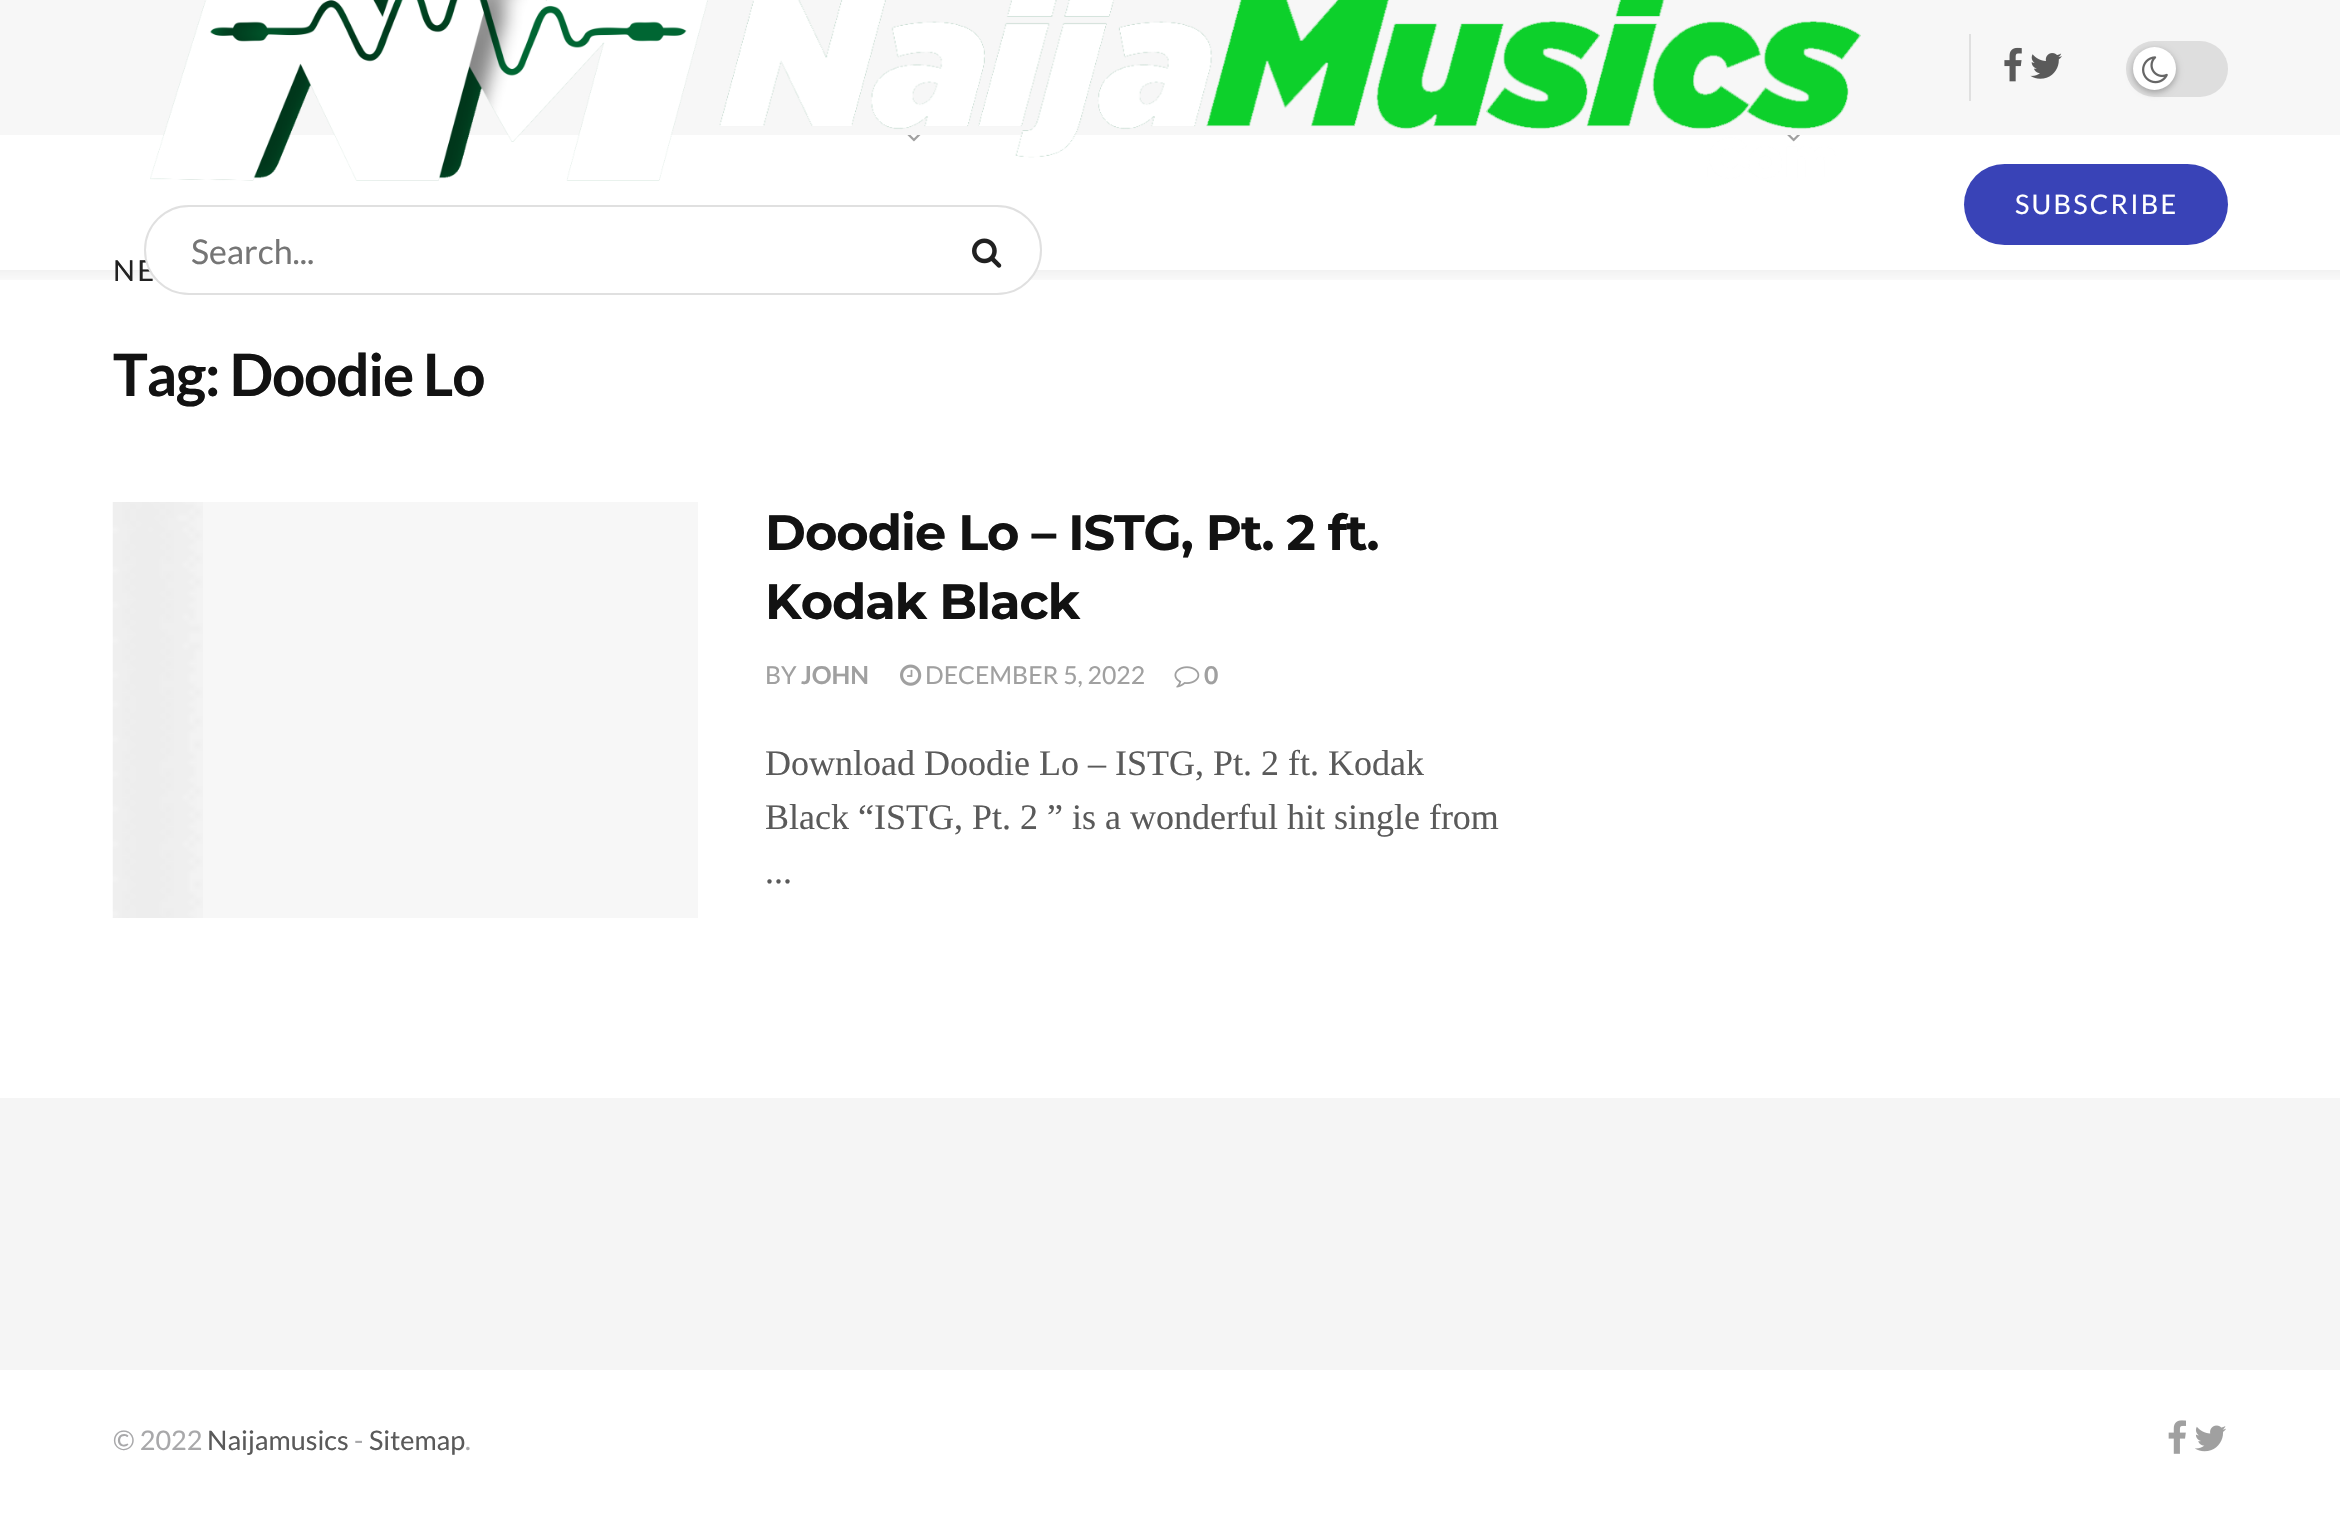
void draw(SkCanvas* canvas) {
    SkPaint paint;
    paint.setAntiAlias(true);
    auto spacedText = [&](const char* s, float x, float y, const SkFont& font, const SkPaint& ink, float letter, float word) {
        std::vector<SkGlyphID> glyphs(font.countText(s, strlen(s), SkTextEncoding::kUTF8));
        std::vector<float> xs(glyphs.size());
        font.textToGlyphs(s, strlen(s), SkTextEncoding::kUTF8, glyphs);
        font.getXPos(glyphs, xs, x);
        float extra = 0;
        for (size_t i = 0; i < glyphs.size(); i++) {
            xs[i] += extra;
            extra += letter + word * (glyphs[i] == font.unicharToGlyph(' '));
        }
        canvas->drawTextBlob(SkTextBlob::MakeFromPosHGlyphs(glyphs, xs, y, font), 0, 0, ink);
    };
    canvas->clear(0xFFFFFFFF);
    paint.setColor(0xFF3943B7);
    canvas->drawRoundRect(SkRect::MakeXYWH(1964, 164, 264, 81), 40.5f, 40.5f, paint);
    SkFont font1(fontMgr->matchFamilyStyle("Lato", SkFontStyle::Normal()), 27);
    font1.setSubpixel(true);
    paint.setColor(0xFFFFFFFF);
    spacedText("SUBSCRIBE", 2015, 214, font1, paint, 2.25f, 0);
    canvas->drawImageRect(SkImages::DeferredFromEncodedData(SkData::MakeFromFileName("img1.png")), SkRect::MakeXYWH(907, 135, 14, 7), SkSamplingOptions());
    canvas->drawImageRect(SkImages::DeferredFromEncodedData(SkData::MakeFromFileName("img2.png")), SkRect::MakeXYWH(1787, 135, 13, 7), SkSamplingOptions());
    SkFont font2(fontMgr->matchFamilyStyle("Lato", SkFontStyle::Normal()), 29);
    font2.setSubpixel(true);
    paint.setColor(0xFF212121);
    spacedText("NE", 113, 281, font2, paint, 2.25f, 0);
    {
        const SkColor colors[] = {0x0D000000, 0x00000000};
        const float stops[] = {0, 1};
        const SkPoint ends[] = {{1170, 270}, {1170, 288}};
        paint.setShader(SkGradientShader::MakeLinear(ends, colors, stops, 2, SkTileMode::kClamp));
        paint.setAlpha(255);
    }
    canvas->drawRect(SkRect::MakeXYWH(0, 270, 2340, 10), paint);
    paint.setShader(nullptr);
    paint.setColor(0xFFF7F7F7);
    canvas->drawRect(SkRect::MakeXYWH(0, 0, 2340, 135), paint);
    paint.setColor(0xFFE0E0E0);
    canvas->drawRect(SkRect::MakeXYWH(1969, 34, 2, 67), paint);
    canvas->drawImageRect(SkImages::DeferredFromEncodedData(SkData::MakeFromFileName("img3.png")), SkRect::MakeXYWH(2004, 47, 18, 35), SkSamplingOptions());
    canvas->drawImageRect(SkImages::DeferredFromEncodedData(SkData::MakeFromFileName("img4.png")), SkRect::MakeXYWH(2030, 53, 32, 26), SkSamplingOptions());
    paint.setColor(0xFFDEDEDE);
    canvas->drawRoundRect(SkRect::MakeXYWH(2126, 41, 102, 56), 28, 28, paint);
    paint.setColor(0x4D000000);
    paint.setMaskFilter(SkMaskFilter::MakeBlur(kNormal_SkBlurStyle, 3.5f));
    canvas->drawRoundRect(SkRect::MakeXYWH(2133, 50, 43, 42), 21, 21, paint);
    paint.setMaskFilter(nullptr);
    paint.setColor(0xFFFFFFFF);
    canvas->drawCircle(2154.5f, 68.5f, 21.5f, paint);
    canvas->drawImageRect(SkImages::DeferredFromEncodedData(SkData::MakeFromFileName("img5.png")), SkRect::MakeXYWH(2142, 56, 26, 28), SkSamplingOptions());
    canvas->drawImageRect(SkImages::DeferredFromEncodedData(SkData::MakeFromFileName("img6.png")), SkRect::MakeXYWH(150, 0, 1711, 181), SkSamplingOptions());
    canvas->drawRoundRect(SkRect::MakeXYWH(145, 206, 896, 88), 44, 44, paint);
    paint.setStyle(SkPaint::kStroke_Style);
    paint.setStrokeWidth(2);
    paint.setColor(0xFFE0E0E0);
    canvas->drawRoundRect(SkRect::MakeXYWH(145, 206, 896, 88), 44, 44, paint);
    SkFont font3(fontMgr->matchFamilyStyle("Lato", SkFontStyle::Normal()), 34);
    font3.setSubpixel(true);
    paint.setStyle(SkPaint::kFill_Style);
    paint.setColor(0xFF757575);
    canvas->drawString("Search...", 191, 264, font3, paint);
    canvas->drawImageRect(SkImages::DeferredFromEncodedData(SkData::MakeFromFileName("img7.png")), SkRect::MakeXYWH(972, 238, 30, 30), SkSamplingOptions());
    SkFont font4(fontMgr->matchFamilyStyle("Lato", SkFontStyle::Bold()), 58.5f);
    font4.setSubpixel(true);
    paint.setColor(0xFF121212);
    spacedText("Tag: Doodie Lo", 113, 396, font4, paint, -1.2f, 0);
    paint.setColor(0xFFF7F7F7);
    canvas->drawRect(SkRect::MakeXYWH(203, 502, 495, 416), paint);
    canvas->drawImageRect(SkImages::DeferredFromEncodedData(SkData::MakeFromFileName("img8.png")), SkRect::MakeXYWH(112, 502, 91, 416), SkSamplingOptions());
    SkFont font5(fontMgr->matchFamilyStyle("Montserrat", SkFontStyle::Bold()), 49.5f);
    font5.setSubpixel(true);
    paint.setColor(0xFF121212);
    spacedText("Doodie Lo – ISTG, Pt. 2 ft.", 765, 550, font5, paint, -1, 0);
    spacedText("Kodak Black", 765, 619, font5, paint, -1, 0);
    SkFont font6(fontMgr->matchFamilyStyle("Lato", SkFontStyle::Normal()), 24.75f);
    font6.setSubpixel(true);
    paint.setColor(0xFFA0A0A0);
    canvas->drawString("BY", 765, 684, font6, paint);
    SkFont font7(fontMgr->matchFamilyStyle("Lato", SkFontStyle::Bold()), 24.75f);
    font7.setSubpixel(true);
    canvas->drawString("JOHN", 801, 684, font7, paint);
    canvas->drawImageRect(SkImages::DeferredFromEncodedData(SkData::MakeFromFileName("img9.png")), SkRect::MakeXYWH(900, 664, 22, 22), SkSamplingOptions());
    canvas->drawString("DECEMBER 5, 2022", 925, 684, font6, paint);
    canvas->drawImageRect(SkImages::DeferredFromEncodedData(SkData::MakeFromFileName("img10.png")), SkRect::MakeXYWH(1174, 666, 26, 22), SkSamplingOptions());
    canvas->drawString("0", 1204, 684, font7, paint);
    SkFont font8(fontMgr->matchFamilyStyle("Liberation Serif", SkFontStyle::Normal()), 36);
    font8.setSubpixel(true);
    paint.setColor(0xFF5A5A5A);
    canvas->drawString("Download Doodie Lo – ISTG, Pt. 2 ft. Kodak", 765, 775, font8, paint);
    canvas->drawString("Black “ISTG, Pt. 2 ” is a wonderful hit single from", 765, 829, font8, paint);
    canvas->drawString("...", 765, 883, font8, paint);
    paint.setColor(0xFFF5F5F5);
    canvas->drawRect(SkRect::MakeXYWH(0, 1098, 2340, 272), paint);
    paint.setColor(0xFFA8A8AA);
    canvas->drawString("© 2022", 113, 1450, font1, paint);
    paint.setColor(0xFF5A5A5A);
    canvas->drawString("Naijamusics", 207, 1450, font1, paint);
    paint.setColor(0xFFA8A8AA);
    canvas->drawString("-", 354, 1450, font1, paint);
    paint.setColor(0xFF5A5A5A);
    canvas->drawString("Sitemap", 369, 1450, font1, paint);
    paint.setColor(0xFFA8A8AA);
    canvas->drawString(".", 465, 1450, font1, paint);
    canvas->drawImageRect(SkImages::DeferredFromEncodedData(SkData::MakeFromFileName("img11.png")), SkRect::MakeXYWH(2168, 1420, 18, 34), SkSamplingOptions());
    canvas->drawImageRect(SkImages::DeferredFromEncodedData(SkData::MakeFromFileName("img12.png")), SkRect::MakeXYWH(2195, 1425, 31, 27), SkSamplingOptions());
}
